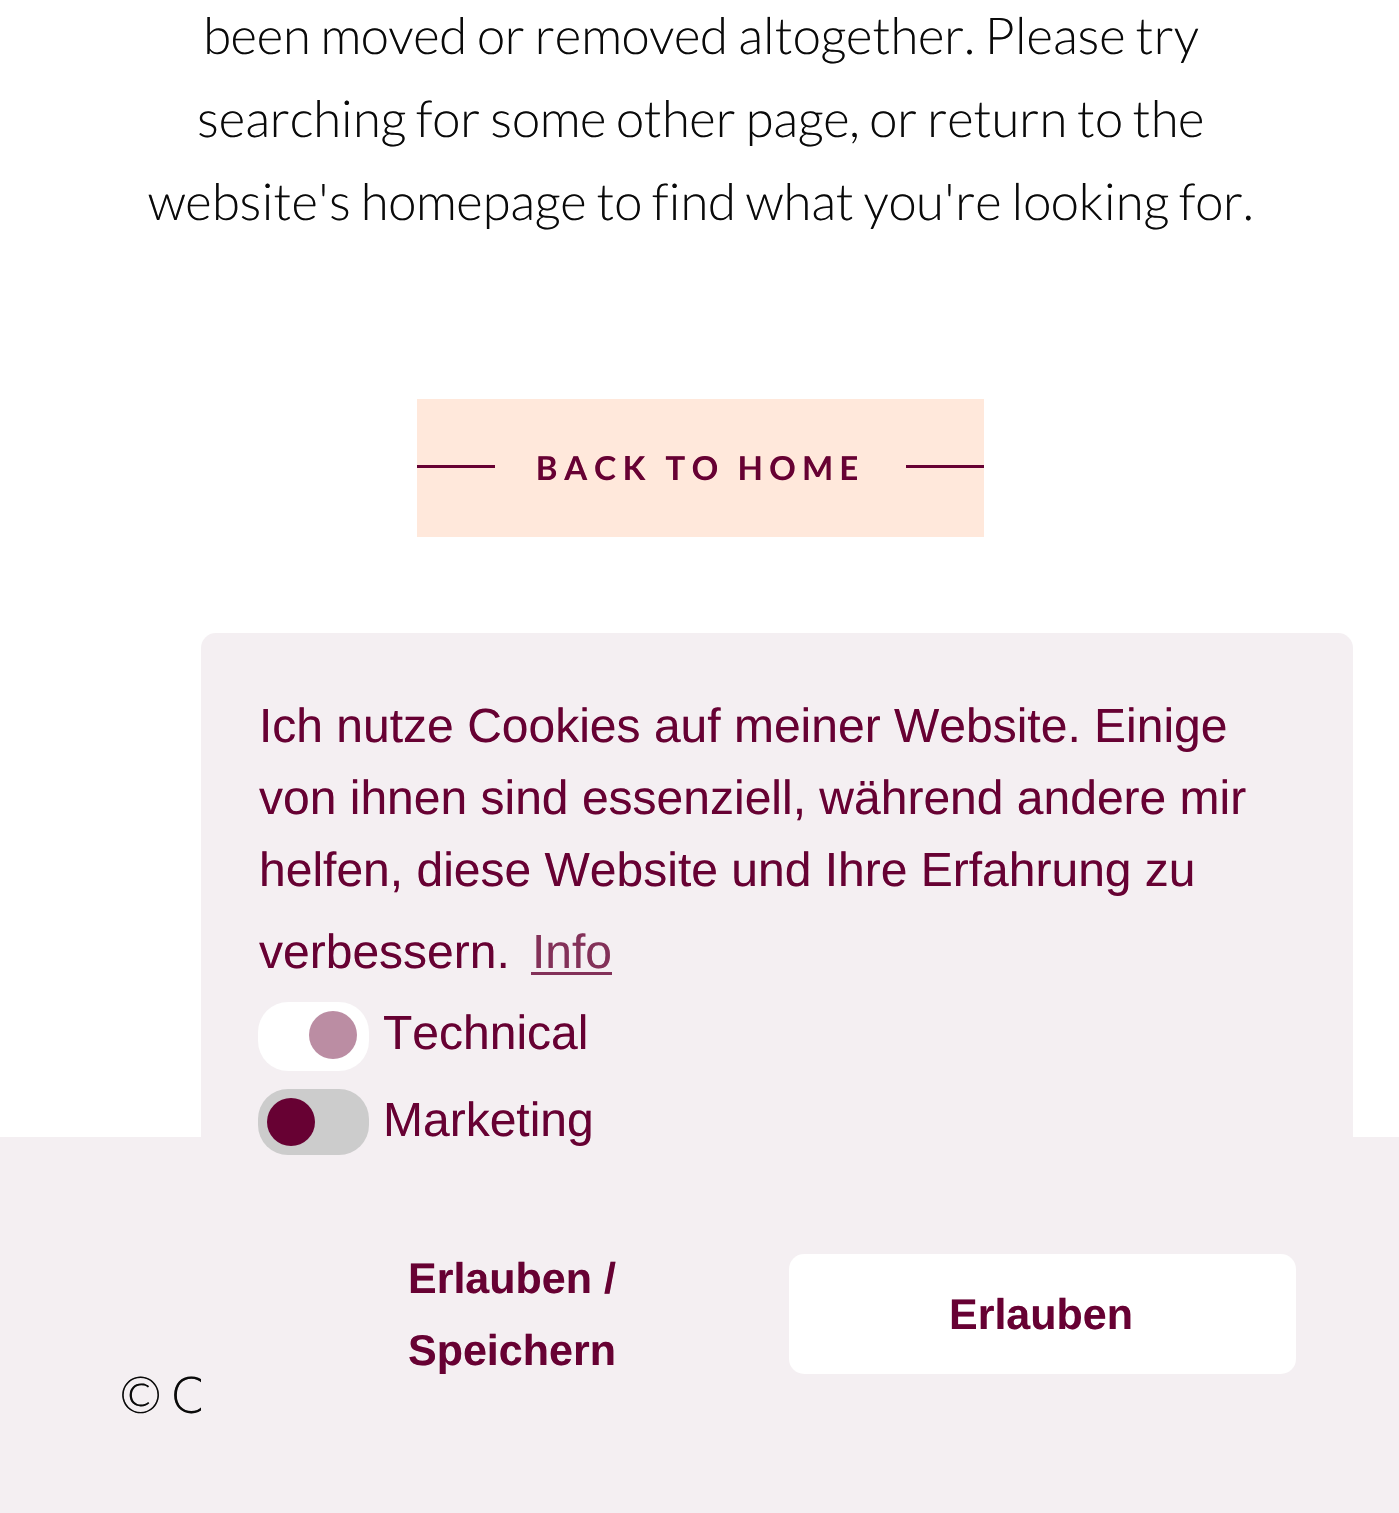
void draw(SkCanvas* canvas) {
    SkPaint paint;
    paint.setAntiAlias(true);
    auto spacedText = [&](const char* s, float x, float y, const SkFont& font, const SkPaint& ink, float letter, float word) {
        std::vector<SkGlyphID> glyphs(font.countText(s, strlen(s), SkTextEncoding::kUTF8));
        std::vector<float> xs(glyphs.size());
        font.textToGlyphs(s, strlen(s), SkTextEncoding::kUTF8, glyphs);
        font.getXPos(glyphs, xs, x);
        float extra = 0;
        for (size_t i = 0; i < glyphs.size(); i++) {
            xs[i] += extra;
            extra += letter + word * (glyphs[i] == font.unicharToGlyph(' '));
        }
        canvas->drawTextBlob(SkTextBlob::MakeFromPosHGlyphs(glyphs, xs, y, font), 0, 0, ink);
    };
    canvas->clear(0xFFFFFFFF);
    SkFont font1(fontMgr->matchFamilyStyle("Lato", SkFontStyle(300, SkFontStyle::kNormal_Width, SkFontStyle::kUpright_Slant)), 51);
    font1.setSubpixel(true);
    paint.setColor(0xFF0A0A0A);
    canvas->drawString("been moved or removed altogether. Please try", 203, 54, font1, paint);
    canvas->drawString("searching for some other page, or return to the", 197, 137, font1, paint);
    canvas->drawString("website's homepage to find what you're looking for.", 148, 220, font1, paint);
    paint.setColor(0xFFFFE8DB);
    canvas->drawRect(SkRect::MakeXYWH(417, 399, 567, 138), paint);
    paint.setColor(0xFF670133);
    canvas->drawRect(SkRect::MakeXYWH(417, 465, 78, 3), paint);
    SkFont font2(fontMgr->matchFamilyStyle("Lato", SkFontStyle::Bold()), 33);
    font2.setSubpixel(true);
    spacedText("BACK TO HOME", 536, 480, font2, paint, 6.6f, 0);
    canvas->drawRect(SkRect::MakeXYWH(906, 465, 78, 3), paint);
    paint.setColor(0xFFF4EFF2);
    canvas->drawRect(SkRect::MakeXYWH(0, 1137, 1399, 376), paint);
    paint.setColor(0xFF0A0A0A);
    canvas->drawString("© O", 120, 1413, font1, paint);
    paint.setColor(0xFFF4EFF2);
    canvas->drawRoundRect(SkRect::MakeXYWH(201, 633, 1152, 834), 15, 15, paint);
    SkFont font3(fontMgr->matchFamilyStyle("Liberation Sans", SkFontStyle::Normal()), 48);
    font3.setSubpixel(true);
    paint.setColor(0xFF670133);
    canvas->drawString("Ich nutze Cookies auf meiner Website. Einige", 259, 742, font3, paint);
    canvas->drawString("von ihnen sind essenziell, während andere mir", 259, 814, font3, paint);
    canvas->drawString("helfen, diese Website und Ihre Erfahrung zu", 259, 886, font3, paint);
    canvas->drawString("verbessern.", 259, 968, font3, paint);
    paint.setColor(0xFF833159);
    canvas->drawString("Info", 532, 968, font3, paint);
    canvas->drawRect(SkRect::MakeXYWH(531, 972, 81, 3), paint);
    paint.setColor(0xFFFFFFFF);
    canvas->drawRoundRect(SkRect::MakeXYWH(258, 1002, 111, 69), 30, 30, paint);
    paint.setColor(0xFFBB8DA3);
    canvas->drawCircle(333, 1035, 24, paint);
    paint.setColor(0xFF670133);
    canvas->drawString("Technical", 383, 1049, font3, paint);
    paint.setColor(0xFFCCCCCC);
    canvas->drawRoundRect(SkRect::MakeXYWH(258, 1089, 111, 66), 30, 30, paint);
    paint.setColor(0xFF670133);
    canvas->drawCircle(291, 1122, 24, paint);
    canvas->drawString("Marketing", 383, 1136, font3, paint);
    SkFont font4(fontMgr->matchFamilyStyle("Liberation Sans", SkFontStyle::Bold()), 43);
    font4.setSubpixel(true);
    canvas->drawString("Erlauben /", 408, 1293, font4, paint);
    canvas->drawString("Speichern", 408, 1365, font4, paint);
    paint.setColor(0xFFFFFFFF);
    canvas->drawRoundRect(SkRect::MakeXYWH(789, 1254, 507, 120), 15, 15, paint);
    paint.setColor(0xFF670133);
    canvas->drawString("Erlauben", 949, 1329, font4, paint);
}
